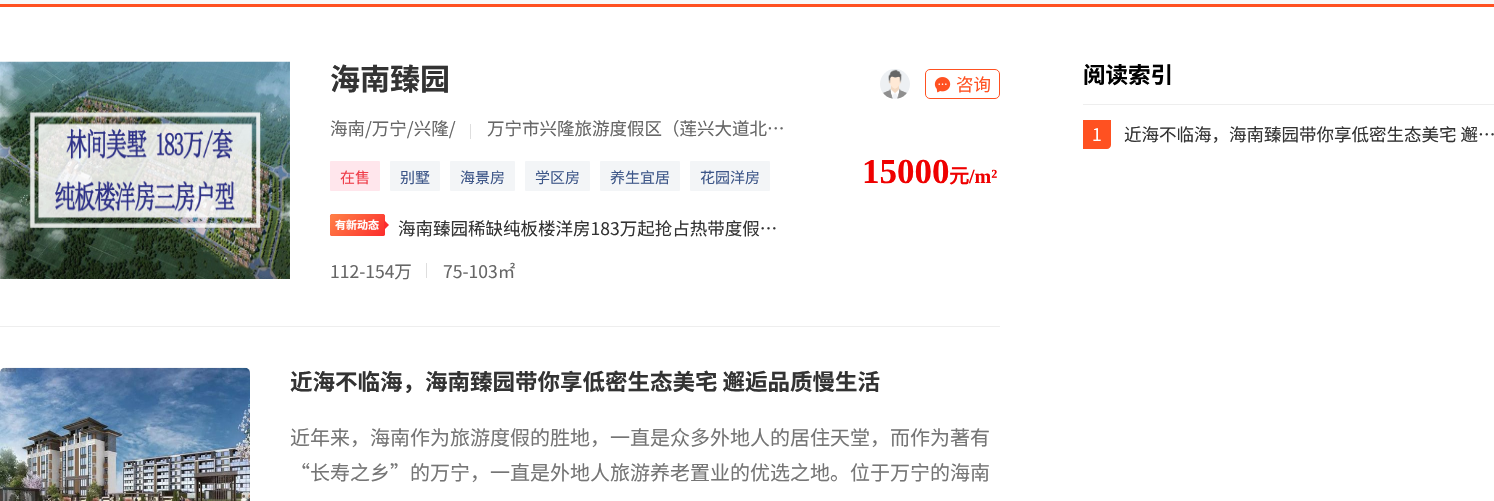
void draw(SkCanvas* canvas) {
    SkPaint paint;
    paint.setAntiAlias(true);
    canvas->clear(0xFFFFFFFF);
    paint.setColor(0xFFF8F8F8);
    canvas->drawRect(SkRect::MakeXYWH(0, 0, 1494, 4), paint);
    paint.setColor(0xFFFF5121);
    canvas->drawRect(SkRect::MakeXYWH(0, 4, 1494, 3), paint);
    paint.setColor(0xFFEEEEEE);
    canvas->drawRect(SkRect::MakeXYWH(0, 326, 1000, 1), paint);
    canvas->drawImageRect(SkImages::DeferredFromEncodedData(SkData::MakeFromFileName("img1.png")), SkRect::MakeXYWH(0, 61, 290, 218), SkSamplingOptions());
    SkFont font1(fontMgr->matchFamilyStyle("Noto Sans CJK SC", SkFontStyle::Bold()), 30);
    font1.setSubpixel(true);
    paint.setColor(0xFF333333);
    canvas->drawString("海南臻园", 330, 90, font1, paint);
    canvas->drawImageRect(SkImages::DeferredFromEncodedData(SkData::MakeFromFileName("img2.png")), SkRect::MakeXYWH(880, 69, 30, 30), SkSamplingOptions());
    paint.setStyle(SkPaint::kStroke_Style);
    paint.setStrokeWidth(1);
    paint.setColor(0xFFFF5121);
    canvas->drawRoundRect(SkRect::MakeXYWH(925.5f, 69.5f, 74, 29), 4.5f, 4.5f, paint);
    canvas->drawImageRect(SkImages::DeferredFromEncodedData(SkData::MakeFromFileName("img3.png")), SkRect::MakeXYWH(934, 77, 17, 16), SkSamplingOptions());
    SkFont font2(fontMgr->matchFamilyStyle("Noto Sans CJK SC", SkFontStyle::Normal()), 17.5f);
    font2.setSubpixel(true);
    paint.setStyle(SkPaint::kFill_Style);
    canvas->drawString("咨询", 956, 91, font2, paint);
    paint.setColor(0xFF666666);
    canvas->drawString("海南/万宁/兴隆/", 330, 135, font2, paint);
    paint.setColor(0xFFDEDEDE);
    canvas->drawRect(SkRect::MakeXYWH(470, 124, 1, 15), paint);
    paint.setColor(0xFF666666);
    canvas->drawString("万宁市兴隆旅游度假区（莲兴大道北…", 487, 135, font2, paint);
    paint.setColor(0xFFFFE6EC);
    canvas->drawRoundRect(SkRect::MakeXYWH(330, 161, 50, 30), 1, 1, paint);
    SkFont font3(fontMgr->matchFamilyStyle("Noto Sans CJK SC", SkFontStyle::Normal()), 15);
    font3.setSubpixel(true);
    paint.setColor(0xFFEF3E4A);
    canvas->drawString("在售", 340, 183, font3, paint);
    paint.setColor(0xFFF3F5F7);
    canvas->drawRoundRect(SkRect::MakeXYWH(390, 161, 50, 30), 1, 1, paint);
    paint.setColor(0xFF3D5688);
    canvas->drawString("别墅", 400, 183, font3, paint);
    paint.setColor(0xFFF3F5F7);
    canvas->drawRoundRect(SkRect::MakeXYWH(450, 161, 65, 30), 1, 1, paint);
    paint.setColor(0xFF3D5688);
    canvas->drawString("海景房", 460, 183, font3, paint);
    paint.setColor(0xFFF3F5F7);
    canvas->drawRoundRect(SkRect::MakeXYWH(525, 161, 65, 30), 1, 1, paint);
    paint.setColor(0xFF3D5688);
    canvas->drawString("学区房", 535, 183, font3, paint);
    paint.setColor(0xFFF3F5F7);
    canvas->drawRoundRect(SkRect::MakeXYWH(600, 161, 80, 30), 1, 1, paint);
    paint.setColor(0xFF3D5688);
    canvas->drawString("养生宜居", 610, 183, font3, paint);
    paint.setColor(0xFFF3F5F7);
    canvas->drawRoundRect(SkRect::MakeXYWH(690, 161, 80, 30), 1, 1, paint);
    paint.setColor(0xFF3D5688);
    canvas->drawString("花园洋房", 700, 183, font3, paint);
    SkFont font4(fontMgr->matchFamilyStyle("Liberation Serif", SkFontStyle::Bold()), 35);
    font4.setSubpixel(true);
    paint.setColor(0xFFEF0000);
    canvas->drawString("15000", 862, 183, font4, paint);
    SkFont font5(fontMgr->matchFamilyStyle("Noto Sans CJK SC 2", SkFontStyle::Bold()), 20);
    font5.setSubpixel(true);
    canvas->drawString("元", 949, 183, font5, paint);
    SkFont font6(fontMgr->matchFamilyStyle("Liberation Serif", SkFontStyle::Bold()), 20);
    font6.setSubpixel(true);
    canvas->drawString("/m²", 969, 183, font6, paint);
    paint.setColor(0xFFFC2C2C);
    canvas->drawRoundRect(SkRect::MakeXYWH(330, 214, 55, 22), 2.5f, 2.5f, paint);
    {
        const SkColor colors[] = {0xF0FF8648, 0xF5FC2C2C};
        const float stops[] = {0, 1};
        const SkPoint ends[] = {{338, 206}, {377, 244}};
        paint.setShader(SkGradientShader::MakeLinear(ends, colors, stops, 2, SkTileMode::kClamp));
        paint.setAlpha(255);
    }
    canvas->drawRoundRect(SkRect::MakeXYWH(330, 214, 55, 22), 2.5f, 2.5f, paint);
    SkFont font7(fontMgr->matchFamilyStyle("Noto Sans CJK SC", SkFontStyle::Bold()), 11);
    font7.setSubpixel(true);
    paint.setShader(nullptr);
    paint.setColor(0xFFFFFFFF);
    canvas->drawString("有新动态", 335, 229, font7, paint);
    paint.setColor(0xFFFC2C2C);
    canvas->drawPath(SkPathBuilder().moveTo(384, 230).lineTo(384, 220).lineTo(389, 225).close().detach(), paint);
    paint.setColor(0xFF333333);
    canvas->drawString("海南臻园稀缺纯板楼洋房183万起抢占热带度假…", 398, 235, font2, paint);
    paint.setColor(0xFF666666);
    canvas->drawString("112-154万", 330, 278, font2, paint);
    paint.setColor(0xFFDEDEDE);
    canvas->drawRect(SkRect::MakeXYWH(426, 263, 1, 15), paint);
    paint.setColor(0xFF666666);
    canvas->drawString("75-103㎡", 443, 278, font2, paint);
    canvas->drawImageRect(SkImages::DeferredFromEncodedData(SkData::MakeFromFileName("img4.png")), SkRect::MakeXYWH(0, 367, 250, 134), SkSamplingOptions());
    SkFont font8(fontMgr->matchFamilyStyle("Noto Sans CJK SC", SkFontStyle::Bold()), 22.5f);
    font8.setSubpixel(true);
    paint.setColor(0xFF333333);
    canvas->drawString("近海不临海，海南臻园带你享低密生态美宅 邂逅品质慢生活", 290, 390, font8, paint);
    SkFont font9(fontMgr->matchFamilyStyle("Noto Sans CJK SC", SkFontStyle::Normal()), 20);
    font9.setSubpixel(true);
    paint.setColor(0xFF757575);
    canvas->drawString("近年来，海南作为旅游度假的胜地，一直是众多外地人的居住天堂，而作为著有", 290, 445, font9, paint);
    canvas->drawString("“长寿之乡”的万宁，一直是外地人旅游养老置业的优选之地。位于万宁的海南", 290, 480, font9, paint);
    paint.setColor(0xFFEEEEEE);
    canvas->drawRect(SkRect::MakeXYWH(1083, 104, 411, 1), paint);
    paint.setColor(0xFF000000);
    canvas->drawString("阅读索引", 1083, 83, font8, paint);
    paint.setColor(0xFFFF5121);
    canvas->drawPath(SkPathBuilder().moveTo(1083, 120).lineTo(1111, 120).lineTo(1111, 145).cubicTo(1111, 147, 1109, 149, 1107, 149).lineTo(1083, 149).close().detach(), paint);
    paint.setColor(0xFFFFFFFF);
    canvas->drawString("1", 1092, 141, font2, paint);
    paint.setColor(0xFF333333);
    canvas->drawString("近海不临海，海南臻园带你享低密生态美宅 邂…", 1124, 141, font2, paint);
}
